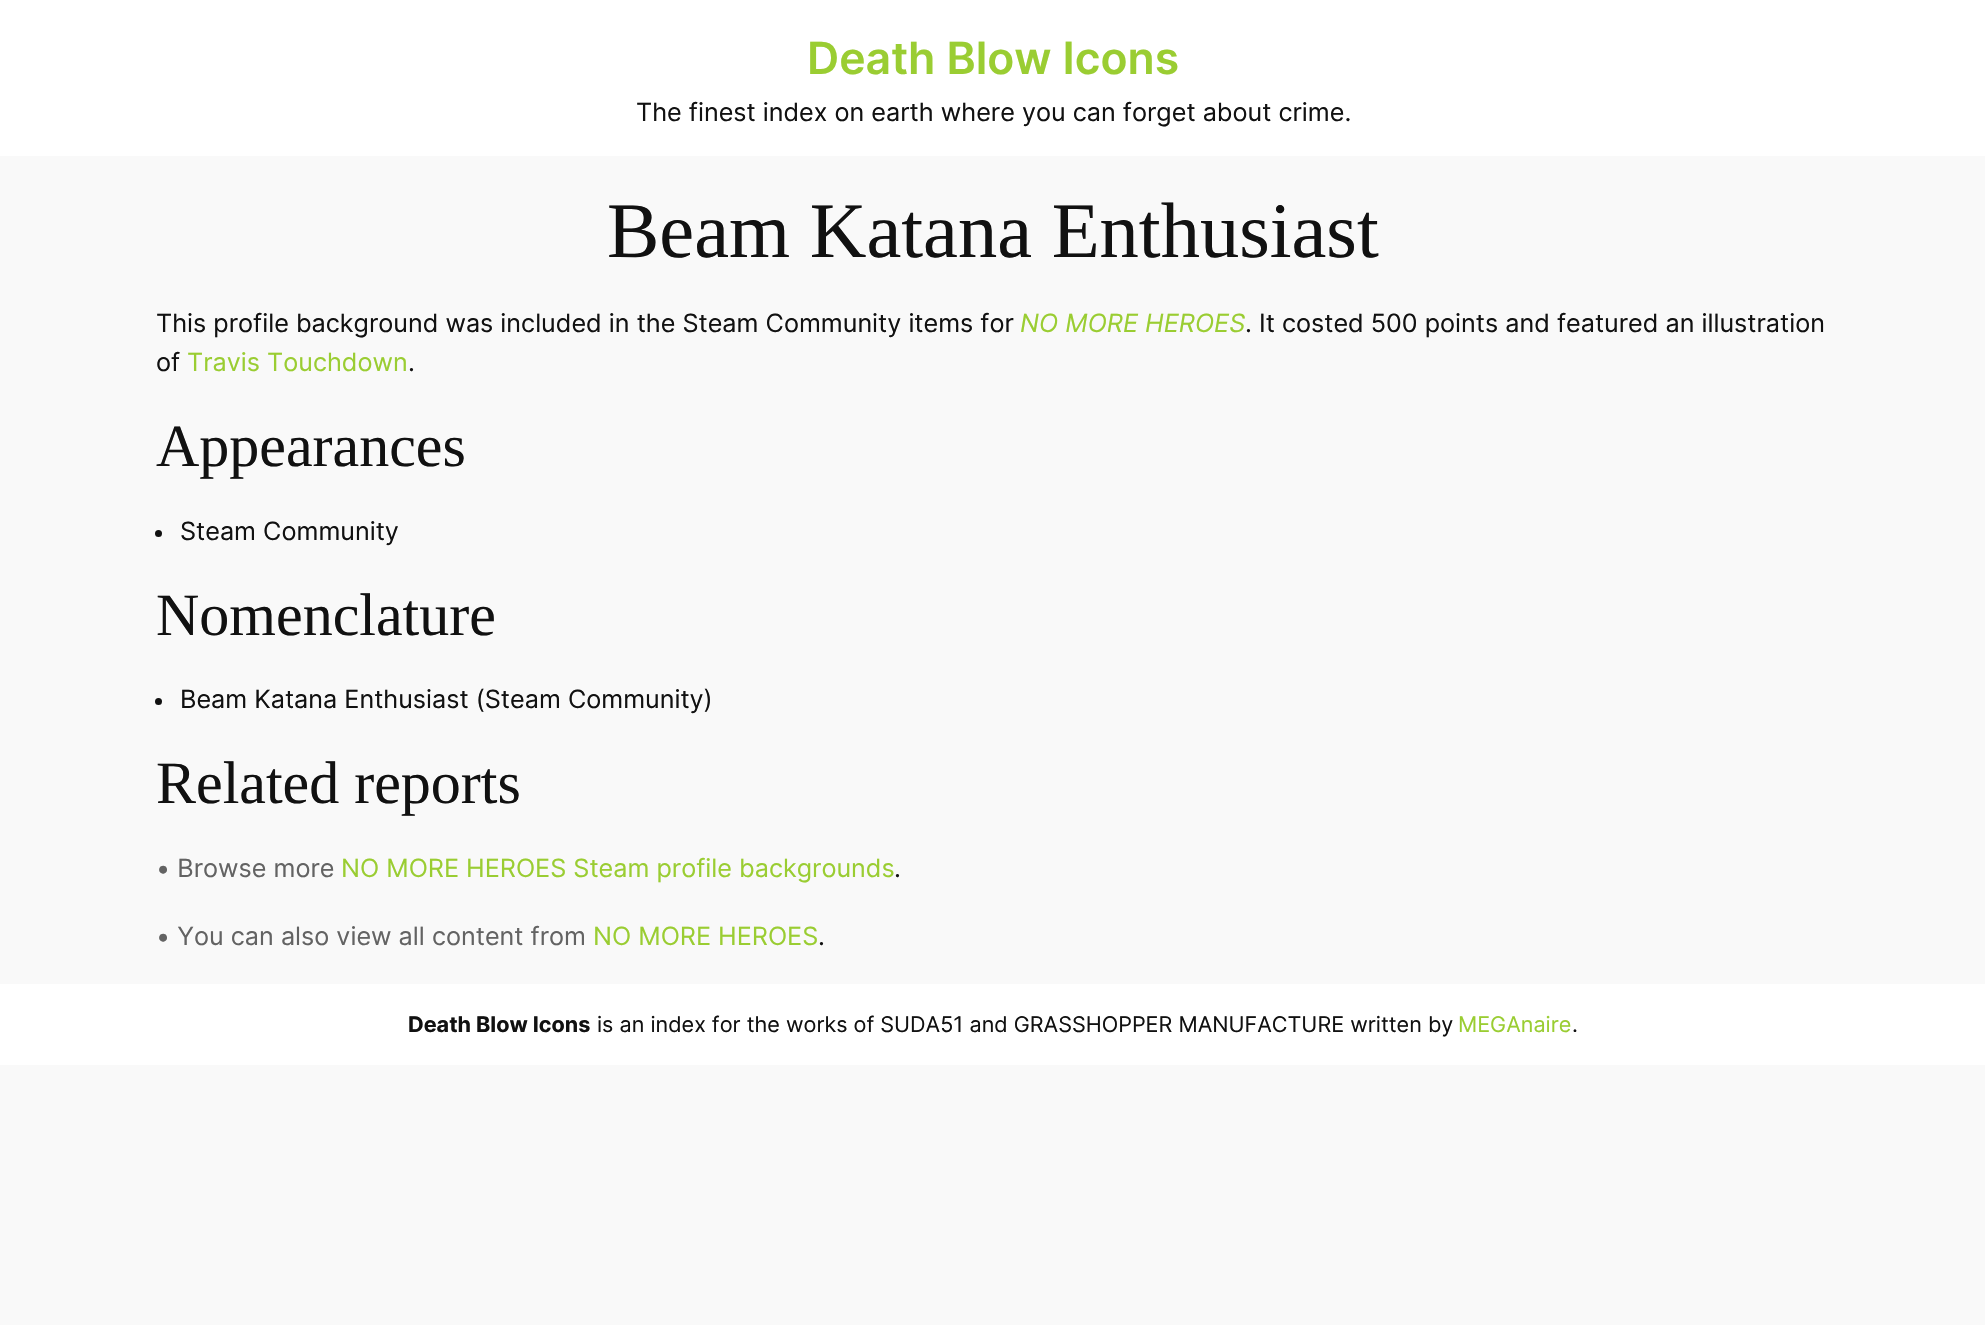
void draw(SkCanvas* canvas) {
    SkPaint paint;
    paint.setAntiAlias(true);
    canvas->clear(0xFFF9F9F9);
    paint.setColor(0xFFFFFFFF);
    canvas->drawRect(SkRect::MakeXYWH(0, 0, 1985, 156), paint);
    SkFont font1(fontMgr->matchFamilyStyle("Inter", SkFontStyle(600, SkFontStyle::kNormal_Width, SkFontStyle::kUpright_Slant)), 44.5f);
    font1.setSubpixel(true);
    paint.setColor(0xFF9ACD32);
    canvas->drawString("Death Blow Icons", 807, 74, font1, paint);
    SkFont font2(fontMgr->matchFamilyStyle("Inter", SkFontStyle::Normal()), 25.2f);
    font2.setSubpixel(true);
    paint.setColor(0xFF111111);
    canvas->drawString("The finest index on earth where you can forget about crime.", 636, 121, font2, paint);
    SkFont font3(fontMgr->matchFamilyStyle("Liberation Serif", SkFontStyle::Normal()), 78.5f);
    font3.setSubpixel(true);
    canvas->drawString("Beam Katana Enthusiast", 607, 257, font3, paint);
    canvas->drawString("This profile background was included in the Steam Community items for", 156, 332, font2, paint);
    SkFont font4(fontMgr->matchFamilyStyle("Inter", SkFontStyle::Italic()), 25.2f);
    font4.setSubpixel(true);
    paint.setColor(0xFF9ACD32);
    canvas->drawString("NO MORE HEROES", 1020, 332, font4, paint);
    paint.setColor(0xFF111111);
    canvas->drawString(". It costed 500 points and featured an illustration", 1245, 332, font2, paint);
    canvas->drawString("of", 156, 371, font2, paint);
    paint.setColor(0xFF9ACD32);
    canvas->drawString("Travis Touchdown", 187, 371, font2, paint);
    paint.setColor(0xFF111111);
    canvas->drawString(".", 408, 371, font2, paint);
    SkFont font5(fontMgr->matchFamilyStyle("Liberation Serif", SkFontStyle::Normal()), 60);
    font5.setSubpixel(true);
    canvas->drawString("Appearances", 156, 466, font5, paint);
    canvas->drawCircle(158.5f, 533.5f, 3.5f, paint);
    canvas->drawString("Steam Community", 180, 540, font2, paint);
    canvas->drawString("Nomenclature", 156, 635, font5, paint);
    canvas->drawCircle(158.5f, 701.5f, 3.5f, paint);
    canvas->drawString("Beam Katana Enthusiast (Steam Community)", 180, 708, font2, paint);
    canvas->drawString("Related reports", 156, 803, font5, paint);
    paint.setColor(0xFF636363);
    canvas->drawString("• Browse more", 156, 877, font2, paint);
    paint.setColor(0xFF9ACD32);
    canvas->drawString("NO MORE HEROES Steam profile backgrounds", 341, 877, font2, paint);
    paint.setColor(0xFF111111);
    canvas->drawString(".", 894, 877, font2, paint);
    paint.setColor(0xFF636363);
    canvas->drawString("• You can also view all content from", 156, 945, font2, paint);
    paint.setColor(0xFF9ACD32);
    canvas->drawString("NO MORE HEROES", 593, 945, font2, paint);
    paint.setColor(0xFF111111);
    canvas->drawString(".", 818, 945, font2, paint);
    paint.setColor(0xFFFFFFFF);
    canvas->drawRect(SkRect::MakeXYWH(0, 984, 1985, 81), paint);
    SkFont font6(fontMgr->matchFamilyStyle("Inter", SkFontStyle::Bold()), 21.6f);
    font6.setSubpixel(true);
    paint.setColor(0xFF111111);
    canvas->drawString("Death Blow Icons", 408, 1032, font6, paint);
    SkFont font7(fontMgr->matchFamilyStyle("Inter", SkFontStyle::Normal()), 21.6f);
    font7.setSubpixel(true);
    canvas->drawString("is an index for the works of SUDA51 and GRASSHOPPER MANUFACTURE written by", 597, 1032, font7, paint);
    paint.setColor(0xFF9ACD32);
    canvas->drawString("MEGAnaire", 1458, 1032, font7, paint);
    paint.setColor(0xFF111111);
    canvas->drawString(".", 1572, 1032, font7, paint);
}
